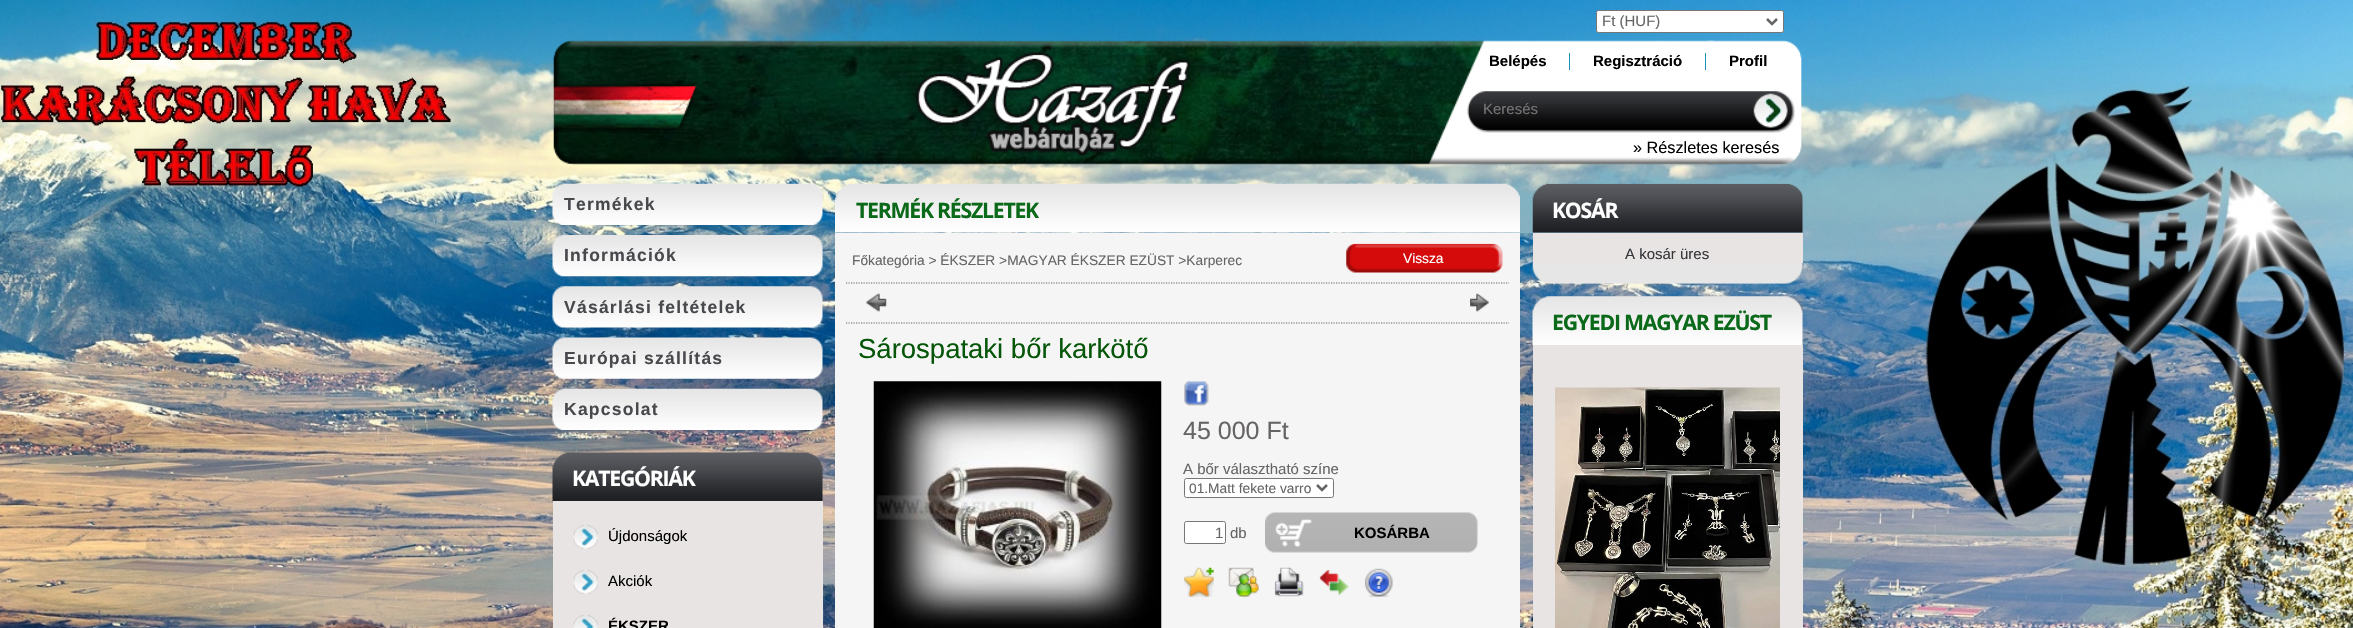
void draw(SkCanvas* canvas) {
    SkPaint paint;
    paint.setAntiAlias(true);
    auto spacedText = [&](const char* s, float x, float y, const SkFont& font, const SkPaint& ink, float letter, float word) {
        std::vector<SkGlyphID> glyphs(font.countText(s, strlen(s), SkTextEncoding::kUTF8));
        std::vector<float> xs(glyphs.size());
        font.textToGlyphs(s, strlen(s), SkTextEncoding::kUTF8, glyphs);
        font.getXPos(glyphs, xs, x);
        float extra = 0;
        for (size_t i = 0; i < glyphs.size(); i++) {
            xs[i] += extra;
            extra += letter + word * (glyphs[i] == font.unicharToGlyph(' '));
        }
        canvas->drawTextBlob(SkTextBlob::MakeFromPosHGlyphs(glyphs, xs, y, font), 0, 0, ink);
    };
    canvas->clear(0xFFFFFFFF);
    canvas->drawImageRect(SkImages::DeferredFromEncodedData(SkData::MakeFromFileName("img1.png")), SkRect::MakeXYWH(0, 0, 2353, 628), SkSamplingOptions());
    paint.setColor(0xFFFFFFFF);
    canvas->drawRoundRect(SkRect::MakeXYWH(1596.5f, 10.5f, 187, 22), 2, 2, paint);
    paint.setStyle(SkPaint::kStroke_Style);
    paint.setStrokeWidth(1);
    paint.setColor(0xFF767676);
    canvas->drawRoundRect(SkRect::MakeXYWH(1596.5f, 10.5f, 187, 22), 2, 2, paint);
    paint.setStrokeWidth(2.5f);
    paint.setColor(0xFF666464);
    canvas->drawPath(SkPathBuilder().moveTo(1767, 19).lineTo(1772, 24).lineTo(1777, 19).detach(), paint);
    SkFont font1(fontMgr->matchFamilyStyle("Liberation Sans", SkFontStyle::Normal()), 15);
    font1.setSubpixel(true);
    paint.setStyle(SkPaint::kFill_Style);
    canvas->drawString("Ft (HUF)", 1602, 26, font1, paint);
    canvas->drawImageRect(SkImages::DeferredFromEncodedData(SkData::MakeFromFileName("img2.png")), SkRect::MakeXYWH(553, 40, 1249, 125), SkSamplingOptions());
    SkFont font2(fontMgr->matchFamilyStyle("Liberation Sans", SkFontStyle::Bold()), 15);
    font2.setSubpixel(true);
    paint.setColor(0xFF000000);
    canvas->drawString("Belépés", 1489, 66, font2, paint);
    paint.setColor(0xFF1F92BC);
    canvas->drawRect(SkRect::MakeXYWH(1569, 53, 1, 17), paint);
    paint.setColor(0xFF000000);
    canvas->drawString("Regisztráció", 1593, 66, font2, paint);
    paint.setColor(0xFF1F92BC);
    canvas->drawRect(SkRect::MakeXYWH(1705, 53, 1, 17), paint);
    paint.setColor(0xFF000000);
    canvas->drawString("Profil", 1729, 66, font2, paint);
    canvas->drawImageRect(SkImages::DeferredFromEncodedData(SkData::MakeFromFileName("img3.png")), SkRect::MakeXYWH(1467, 91, 328, 42), SkSamplingOptions());
    paint.setColor(0xFF757575);
    canvas->drawString("Keresés", 1483, 114, font1, paint);
    SkFont font3(fontMgr->matchFamilyStyle("Liberation Sans", SkFontStyle::Normal()), 16.25f);
    font3.setSubpixel(true);
    paint.setColor(0xFF000000);
    canvas->drawString("» Részletes keresés", 1633, 153, font3, paint);
    canvas->drawImageRect(SkImages::DeferredFromEncodedData(SkData::MakeFromFileName("img4.png")), SkRect::MakeXYWH(552, 183, 271, 42), SkSamplingOptions());
    SkFont font4(fontMgr->matchFamilyStyle("Liberation Sans", SkFontStyle::Bold()), 17.5f);
    font4.setSubpixel(true);
    paint.setColor(0xFF48494D);
    spacedText("Termékek", 564, 210, font4, paint, 1.25f, 0);
    canvas->drawImageRect(SkImages::DeferredFromEncodedData(SkData::MakeFromFileName("img5.png")), SkRect::MakeXYWH(552, 235, 271, 42), SkSamplingOptions());
    spacedText("Információk", 564, 261, font4, paint, 1.25f, 0);
    canvas->drawImageRect(SkImages::DeferredFromEncodedData(SkData::MakeFromFileName("img6.png")), SkRect::MakeXYWH(552, 286, 271, 42), SkSamplingOptions());
    spacedText("Vásárlási feltételek", 564, 313, font4, paint, 1.25f, 0);
    canvas->drawImageRect(SkImages::DeferredFromEncodedData(SkData::MakeFromFileName("img7.png")), SkRect::MakeXYWH(552, 337, 271, 42), SkSamplingOptions());
    spacedText("Európai szállítás", 564, 364, font4, paint, 1.25f, 0);
    canvas->drawImageRect(SkImages::DeferredFromEncodedData(SkData::MakeFromFileName("img8.png")), SkRect::MakeXYWH(552, 388, 271, 42), SkSamplingOptions());
    spacedText("Kapcsolat", 564, 415, font4, paint, 1.25f, 0);
    canvas->drawImageRect(SkImages::DeferredFromEncodedData(SkData::MakeFromFileName("img9.png")), SkRect::MakeXYWH(552, 452, 271, 50), SkSamplingOptions());
    SkFont font5(fontMgr->matchFamilyStyle("Open Sans", SkFontStyle::Bold()), 21.25f);
    font5.setSubpixel(true);
    paint.setColor(0xFFFFFFFF);
    spacedText("KATEGÓRIÁK", 572, 486, font5, paint, -1.25f, 0);
    paint.setColor(0xFFE9E4E4);
    canvas->drawRect(SkRect::MakeXYWH(553, 501, 270, 127), paint);
    canvas->drawImageRect(SkImages::DeferredFromEncodedData(SkData::MakeFromFileName("img10.png")), SkRect::MakeXYWH(573, 525, 25, 24), SkSamplingOptions());
    paint.setColor(0xFF000000);
    canvas->drawString("Újdonságok", 608, 541, font1, paint);
    canvas->drawImageRect(SkImages::DeferredFromEncodedData(SkData::MakeFromFileName("img11.png")), SkRect::MakeXYWH(573, 570, 25, 24), SkSamplingOptions());
    canvas->drawString("Akciók", 608, 586, font1, paint);
    canvas->drawImageRect(SkImages::DeferredFromEncodedData(SkData::MakeFromFileName("img12.png")), SkRect::MakeXYWH(573, 615, 25, 13), SkSamplingOptions());
    canvas->drawString("ÉKSZER", 608, 631, font2, paint);
    canvas->drawImageRect(SkImages::DeferredFromEncodedData(SkData::MakeFromFileName("img13.png")), SkRect::MakeXYWH(835, 183, 685, 50), SkSamplingOptions());
    paint.setColor(0xFF0B691A);
    spacedText("TERMÉK RÉSZLETEK", 856, 218, font5, paint, -1.25f, 0);
    paint.setColor(0xFFF6F5F5);
    canvas->drawRect(SkRect::MakeXYWH(835, 233, 685, 395), paint);
    SkFont font6(fontMgr->matchFamilyStyle("Liberation Sans", SkFontStyle::Normal()), 13.75f);
    font6.setSubpixel(true);
    paint.setColor(0xFF666464);
    canvas->drawString("Főkategória > ÉKSZER >MAGYAR ÉKSZER EZÜST >Karperec", 852, 265, font6, paint);
    canvas->drawImageRect(SkImages::DeferredFromEncodedData(SkData::MakeFromFileName("img14.png")), SkRect::MakeXYWH(1346, 243, 157, 30), SkSamplingOptions());
    paint.setColor(0xFFFFFFFF);
    canvas->drawString("Vissza", 1403, 263, font6, paint);
    paint.setStyle(SkPaint::kStroke_Style);
    paint.setStrokeWidth(1.2f);
    paint.setColor(0xFF696969);
    paint.setPathEffect(SkDashPathEffect::Make({{1.25f, 1.25f}}, 0));
    canvas->drawPath(SkPathBuilder().moveTo(846, 283).lineTo(1509, 283).detach(), paint);
    paint.setPathEffect(nullptr);
    canvas->drawImageRect(SkImages::DeferredFromEncodedData(SkData::MakeFromFileName("img15.png")), SkRect::MakeXYWH(866, 293, 21, 19), SkSamplingOptions());
    canvas->drawImageRect(SkImages::DeferredFromEncodedData(SkData::MakeFromFileName("img16.png")), SkRect::MakeXYWH(1470, 293, 19, 19), SkSamplingOptions());
    paint.setPathEffect(SkDashPathEffect::Make({{1.25f, 1.25f}}, 0));
    canvas->drawPath(SkPathBuilder().moveTo(846, 323).lineTo(1509, 323).detach(), paint);
    paint.setPathEffect(nullptr);
    SkFont font7(fontMgr->matchFamilyStyle("Liberation Sans", SkFontStyle::Normal()), 27.5f);
    font7.setSubpixel(true);
    paint.setStyle(SkPaint::kFill_Style);
    paint.setColor(0xFF055609);
    canvas->drawString("Sárospataki bőr karkötő", 858, 358, font7, paint);
    canvas->drawImageRect(SkImages::DeferredFromEncodedData(SkData::MakeFromFileName("img17.png")), SkRect::MakeXYWH(873, 381, 289, 247), SkSamplingOptions());
    canvas->drawImageRect(SkImages::DeferredFromEncodedData(SkData::MakeFromFileName("img18.png")), SkRect::MakeXYWH(1184, 381, 25, 25), SkSamplingOptions());
    SkFont font8(fontMgr->matchFamilyStyle("Liberation Sans", SkFontStyle::Normal()), 25);
    font8.setSubpixel(true);
    paint.setColor(0xFF666464);
    canvas->drawString("45 000 Ft", 1183, 439, font8, paint);
    canvas->drawString("A bőr választható színe", 1183, 474, font1, paint);
    paint.setColor(0xFFFFFFFF);
    canvas->drawRoundRect(SkRect::MakeXYWH(1184.5f, 478.5f, 149, 19), 2, 2, paint);
    paint.setStyle(SkPaint::kStroke_Style);
    paint.setStrokeWidth(1);
    paint.setColor(0xFF767676);
    canvas->drawRoundRect(SkRect::MakeXYWH(1184.5f, 478.5f, 149, 19), 2, 2, paint);
    paint.setStrokeWidth(2.5f);
    paint.setColor(0xFF666464);
    canvas->drawPath(SkPathBuilder().moveTo(1317, 485).lineTo(1322, 490).lineTo(1327, 485).detach(), paint);
    paint.setStyle(SkPaint::kFill_Style);
    canvas->drawString("01.Matt fekete varro", 1189, 493, font6, paint);
    paint.setColor(0xFFFFFFFF);
    canvas->drawRoundRect(SkRect::MakeXYWH(1184.5f, 521.5f, 41, 22), 2, 2, paint);
    paint.setStyle(SkPaint::kStroke_Style);
    paint.setStrokeWidth(1);
    paint.setColor(0xFF767676);
    canvas->drawRoundRect(SkRect::MakeXYWH(1184.5f, 521.5f, 41, 22), 2, 2, paint);
    paint.setStyle(SkPaint::kFill_Style);
    paint.setColor(0xFF666464);
    canvas->drawString("1", 1215, 538, font1, paint);
    canvas->drawString("db", 1230, 538, font1, paint);
    canvas->drawImageRect(SkImages::DeferredFromEncodedData(SkData::MakeFromFileName("img19.png")), SkRect::MakeXYWH(1265, 512, 213, 41), SkSamplingOptions());
    paint.setColor(0xFF000000);
    canvas->drawString("KOSÁRBA", 1354, 538, font2, paint);
    canvas->drawImageRect(SkImages::DeferredFromEncodedData(SkData::MakeFromFileName("img20.png")), SkRect::MakeXYWH(1184, 567, 30, 31), SkSamplingOptions());
    canvas->drawImageRect(SkImages::DeferredFromEncodedData(SkData::MakeFromFileName("img21.png")), SkRect::MakeXYWH(1228, 567, 31, 31), SkSamplingOptions());
    canvas->drawImageRect(SkImages::DeferredFromEncodedData(SkData::MakeFromFileName("img22.png")), SkRect::MakeXYWH(1274, 567, 30, 30), SkSamplingOptions());
    canvas->drawImageRect(SkImages::DeferredFromEncodedData(SkData::MakeFromFileName("img23.png")), SkRect::MakeXYWH(1319, 569, 30, 27), SkSamplingOptions());
    canvas->drawImageRect(SkImages::DeferredFromEncodedData(SkData::MakeFromFileName("img24.png")), SkRect::MakeXYWH(1364, 568, 29, 29), SkSamplingOptions());
    canvas->drawImageRect(SkImages::DeferredFromEncodedData(SkData::MakeFromFileName("img25.png")), SkRect::MakeXYWH(1532, 183, 271, 50), SkSamplingOptions());
    paint.setColor(0xFFFFFFFF);
    spacedText("KOSÁR", 1552, 218, font5, paint, -1.25f, 0);
    paint.setColor(0xFFE9E4E4);
    canvas->drawRect(SkRect::MakeXYWH(1533, 233, 270, 30), paint);
    paint.setColor(0xFF36373A);
    canvas->drawString("A kosár üres", 1625, 259, font1, paint);
    canvas->drawImageRect(SkImages::DeferredFromEncodedData(SkData::MakeFromFileName("img26.png")), SkRect::MakeXYWH(1532, 262, 271, 22), SkSamplingOptions());
    canvas->drawImageRect(SkImages::DeferredFromEncodedData(SkData::MakeFromFileName("img27.png")), SkRect::MakeXYWH(1532, 296, 271, 49), SkSamplingOptions());
    paint.setColor(0xFF0B691A);
    spacedText("EGYEDI MAGYAR EZÜST", 1552, 330, font5, paint, -1.25f, 0);
    paint.setColor(0xFFE9E4E4);
    canvas->drawRect(SkRect::MakeXYWH(1533, 345, 270, 283), paint);
    canvas->drawImageRect(SkImages::DeferredFromEncodedData(SkData::MakeFromFileName("img28.png")), SkRect::MakeXYWH(1555, 387, 225, 241), SkSamplingOptions());
}
